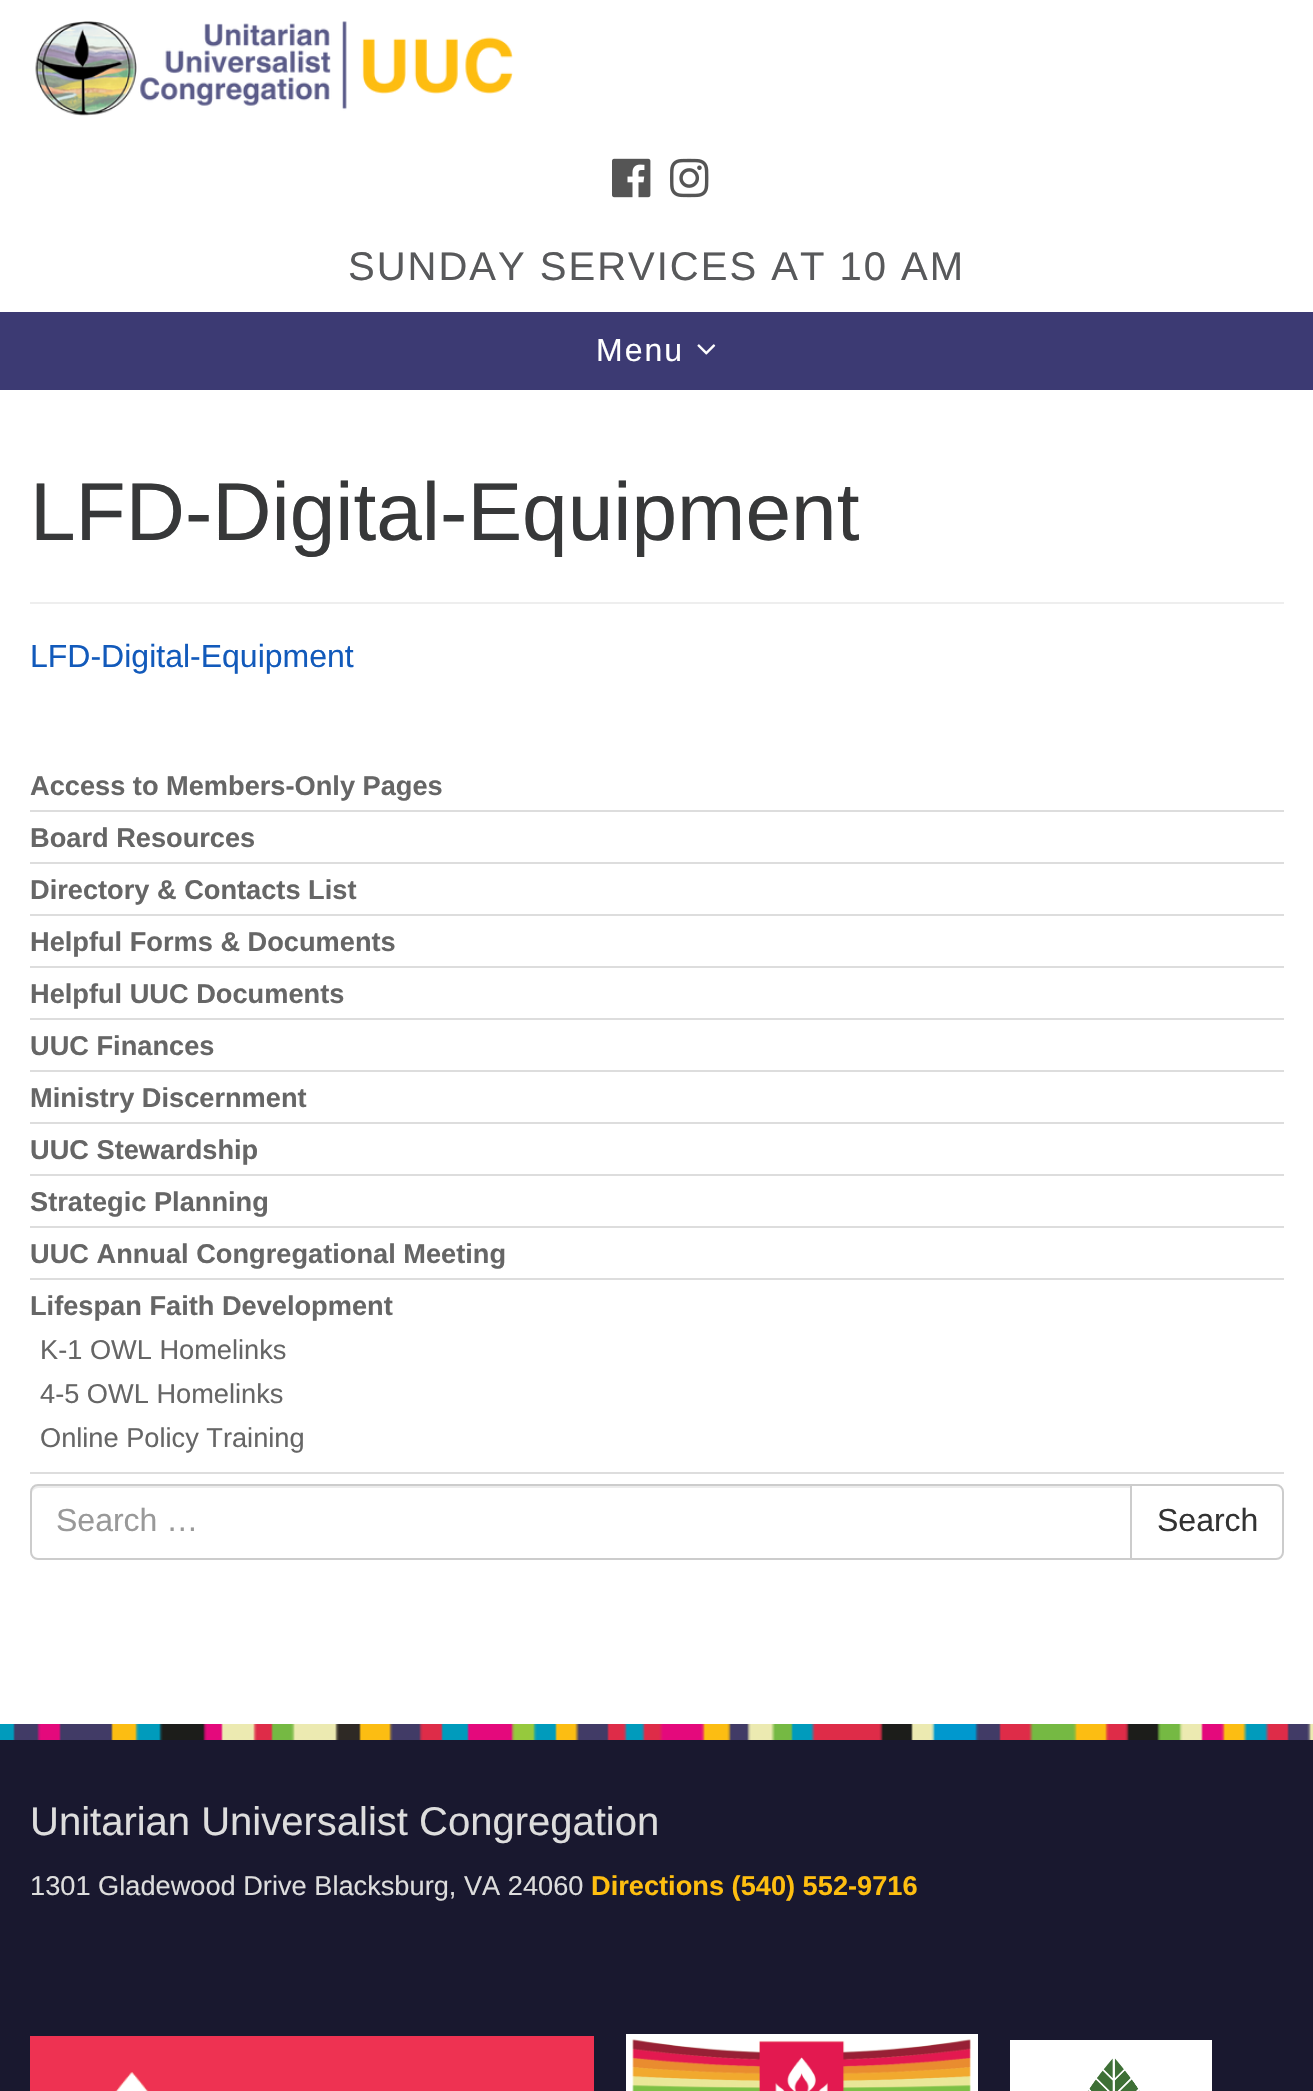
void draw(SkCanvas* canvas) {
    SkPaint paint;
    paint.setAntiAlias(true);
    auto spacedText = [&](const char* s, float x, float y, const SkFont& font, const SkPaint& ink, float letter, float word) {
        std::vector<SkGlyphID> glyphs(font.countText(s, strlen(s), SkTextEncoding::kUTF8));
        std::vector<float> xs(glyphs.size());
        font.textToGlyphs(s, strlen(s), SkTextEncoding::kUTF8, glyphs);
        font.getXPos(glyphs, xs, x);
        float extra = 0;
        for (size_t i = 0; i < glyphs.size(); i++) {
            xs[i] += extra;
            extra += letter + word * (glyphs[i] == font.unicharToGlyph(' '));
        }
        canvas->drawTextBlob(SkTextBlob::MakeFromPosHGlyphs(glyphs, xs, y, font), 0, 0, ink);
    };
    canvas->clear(0xFFFFFFFF);
    canvas->drawImageRect(SkImages::DeferredFromEncodedData(SkData::MakeFromFileName("img1.png")), SkRect::MakeXYWH(35, 21, 478, 95), SkSamplingOptions());
    canvas->drawImageRect(SkImages::DeferredFromEncodedData(SkData::MakeFromFileName("img2.png")), SkRect::MakeXYWH(612, 158, 39, 40), SkSamplingOptions());
    canvas->drawImageRect(SkImages::DeferredFromEncodedData(SkData::MakeFromFileName("img3.png")), SkRect::MakeXYWH(670, 158, 39, 40), SkSamplingOptions());
    SkFont font1(fontMgr->matchFamilyStyle("Liberation Sans", SkFontStyle::Normal()), 40);
    font1.setSubpixel(true);
    paint.setColor(0xFF58595B);
    spacedText("SUNDAY SERVICES AT 10 AM", 348, 280, font1, paint, 2, 0);
    paint.setColor(0xFF3C3A73);
    canvas->drawRect(SkRect::MakeXYWH(0, 312, 1313, 78), paint);
    SkFont font2(fontMgr->matchFamilyStyle("Liberation Sans", SkFontStyle::Normal()), 32);
    font2.setSubpixel(true);
    paint.setColor(0xFFFFFFFF);
    spacedText("Menu", 596, 361, font2, paint, 2, 0);
    canvas->drawImageRect(SkImages::DeferredFromEncodedData(SkData::MakeFromFileName("img4.png")), SkRect::MakeXYWH(697, 344, 19, 11), SkSamplingOptions());
    paint.setColor(0xFFEEEEEE);
    canvas->drawRect(SkRect::MakeXYWH(30, 602, 1254, 2), paint);
    SkFont font3(fontMgr->matchFamilyStyle("Liberation Sans", SkFontStyle::Normal()), 82);
    font3.setSubpixel(true);
    paint.setColor(0xFF373839);
    canvas->drawString("LFD-Digital-Equipment", 30, 540, font3, paint);
    paint.setColor(0xFF125ABB);
    canvas->drawString("LFD-Digital-Equipment", 30, 667, font2, paint);
    paint.setColor(0xFFDDDDDD);
    canvas->drawRect(SkRect::MakeXYWH(30, 810, 1254, 2), paint);
    SkFont font4(fontMgr->matchFamilyStyle("Liberation Sans", SkFontStyle::Bold()), 27.2f);
    font4.setSubpixel(true);
    paint.setColor(0xFF666666);
    canvas->drawString("Access to Members-Only Pages", 30, 795, font4, paint);
    paint.setColor(0xFFDDDDDD);
    canvas->drawRect(SkRect::MakeXYWH(30, 862, 1254, 2), paint);
    paint.setColor(0xFF666666);
    canvas->drawString("Board Resources", 30, 847, font4, paint);
    paint.setColor(0xFFDDDDDD);
    canvas->drawRect(SkRect::MakeXYWH(30, 914, 1254, 2), paint);
    paint.setColor(0xFF666666);
    canvas->drawString("Directory & Contacts List", 30, 899, font4, paint);
    paint.setColor(0xFFDDDDDD);
    canvas->drawRect(SkRect::MakeXYWH(30, 966, 1254, 2), paint);
    paint.setColor(0xFF666666);
    canvas->drawString("Helpful Forms & Documents", 30, 951, font4, paint);
    paint.setColor(0xFFDDDDDD);
    canvas->drawRect(SkRect::MakeXYWH(30, 1018, 1254, 2), paint);
    paint.setColor(0xFF666666);
    canvas->drawString("Helpful UUC Documents", 30, 1003, font4, paint);
    paint.setColor(0xFFDDDDDD);
    canvas->drawRect(SkRect::MakeXYWH(30, 1070, 1254, 2), paint);
    paint.setColor(0xFF666666);
    canvas->drawString("UUC Finances", 30, 1055, font4, paint);
    paint.setColor(0xFFDDDDDD);
    canvas->drawRect(SkRect::MakeXYWH(30, 1122, 1254, 2), paint);
    paint.setColor(0xFF666666);
    canvas->drawString("Ministry Discernment", 30, 1107, font4, paint);
    paint.setColor(0xFFDDDDDD);
    canvas->drawRect(SkRect::MakeXYWH(30, 1174, 1254, 2), paint);
    paint.setColor(0xFF666666);
    canvas->drawString("UUC Stewardship", 30, 1159, font4, paint);
    paint.setColor(0xFFDDDDDD);
    canvas->drawRect(SkRect::MakeXYWH(30, 1226, 1254, 2), paint);
    paint.setColor(0xFF666666);
    canvas->drawString("Strategic Planning", 30, 1211, font4, paint);
    paint.setColor(0xFFDDDDDD);
    canvas->drawRect(SkRect::MakeXYWH(30, 1278, 1254, 2), paint);
    paint.setColor(0xFF666666);
    canvas->drawString("UUC Annual Congregational Meeting", 30, 1263, font4, paint);
    paint.setColor(0xFFDDDDDD);
    canvas->drawRect(SkRect::MakeXYWH(30, 1472, 1254, 2), paint);
    paint.setColor(0xFF666666);
    canvas->drawString("Lifespan Faith Development", 30, 1315, font4, paint);
    SkFont font5(fontMgr->matchFamilyStyle("Liberation Sans", SkFontStyle::Normal()), 27.2f);
    font5.setSubpixel(true);
    canvas->drawString("K-1 OWL Homelinks", 40, 1359, font5, paint);
    canvas->drawString("4-5 OWL Homelinks", 40, 1403, font5, paint);
    canvas->drawString("Online Policy Training", 40, 1447, font5, paint);
    paint.setStyle(SkPaint::kStroke_Style);
    paint.setStrokeWidth(2);
    paint.setColor(0xFFCCCCCC);
    canvas->drawPath(SkPathBuilder().moveTo(1131, 1485).lineTo(1276, 1485).cubicTo(1280, 1485, 1283, 1488, 1283, 1492).lineTo(1283, 1552).cubicTo(1283, 1556, 1280, 1559, 1276, 1559).lineTo(1131, 1559).close().detach(), paint);
    paint.setStyle(SkPaint::kFill_Style);
    paint.setColor(0xFFFFFFFF);
    canvas->drawPath(SkPathBuilder().moveTo(38, 1484).lineTo(1132, 1484).lineTo(1132, 1560).lineTo(38, 1560).cubicTo(33.5f, 1560, 30, 1556.5f, 30, 1552).lineTo(30, 1492).cubicTo(30, 1487.5f, 33.5f, 1484, 38, 1484).close().detach(), paint);
    paint.setColor(0xFFECECEC);
    canvas->drawPath(SkPathBuilder().moveTo(38, 1488).lineTo(1130, 1488).lineTo(1130, 1486).lineTo(38, 1486).cubicTo(33, 1486, 32, 1490, 32, 1494).cubicTo(32, 1491, 35, 1488, 38, 1488).close().detach(), paint);
    paint.setStyle(SkPaint::kStroke_Style);
    paint.setColor(0xFFCCCCCC);
    canvas->drawPath(SkPathBuilder().moveTo(38, 1485).lineTo(1131, 1485).lineTo(1131, 1559).lineTo(38, 1559).cubicTo(34, 1559, 31, 1556, 31, 1552).lineTo(31, 1492).cubicTo(31, 1488, 34, 1485, 38, 1485).close().detach(), paint);
    paint.setStyle(SkPaint::kFill_Style);
    paint.setColor(0xFF999999);
    canvas->drawString("Search …", 56, 1531, font2, paint);
    paint.setColor(0xFF333333);
    canvas->drawString("Search", 1157, 1531, font2, paint);
    paint.setColor(0xFF19182F);
    canvas->drawRect(SkRect::MakeXYWH(0, 1740, 1313, 351), paint);
    canvas->drawImageRect(SkImages::DeferredFromEncodedData(SkData::MakeFromFileName("img5.png")), SkRect::MakeXYWH(0, 1724, 1313, 16), SkSamplingOptions());
    paint.setColor(0xFFDDDDDD);
    canvas->drawString("Unitarian Universalist Congregation", 30, 1835, font1, paint);
    canvas->drawString("1301 Gladewood Drive Blacksburg, VA 24060", 30, 1895, font5, paint);
    paint.setColor(0xFFFEBE10);
    canvas->drawString("Directions (540) 552-9716", 591, 1895, font4, paint);
    canvas->drawImageRect(SkImages::DeferredFromEncodedData(SkData::MakeFromFileName("img6.png")), SkRect::MakeXYWH(30, 2036, 564, 55), SkSamplingOptions());
    canvas->drawImageRect(SkImages::DeferredFromEncodedData(SkData::MakeFromFileName("img7.png")), SkRect::MakeXYWH(626, 2034, 352, 57), SkSamplingOptions());
    canvas->drawImageRect(SkImages::DeferredFromEncodedData(SkData::MakeFromFileName("img8.png")), SkRect::MakeXYWH(1010, 2040, 202, 51), SkSamplingOptions());
}
